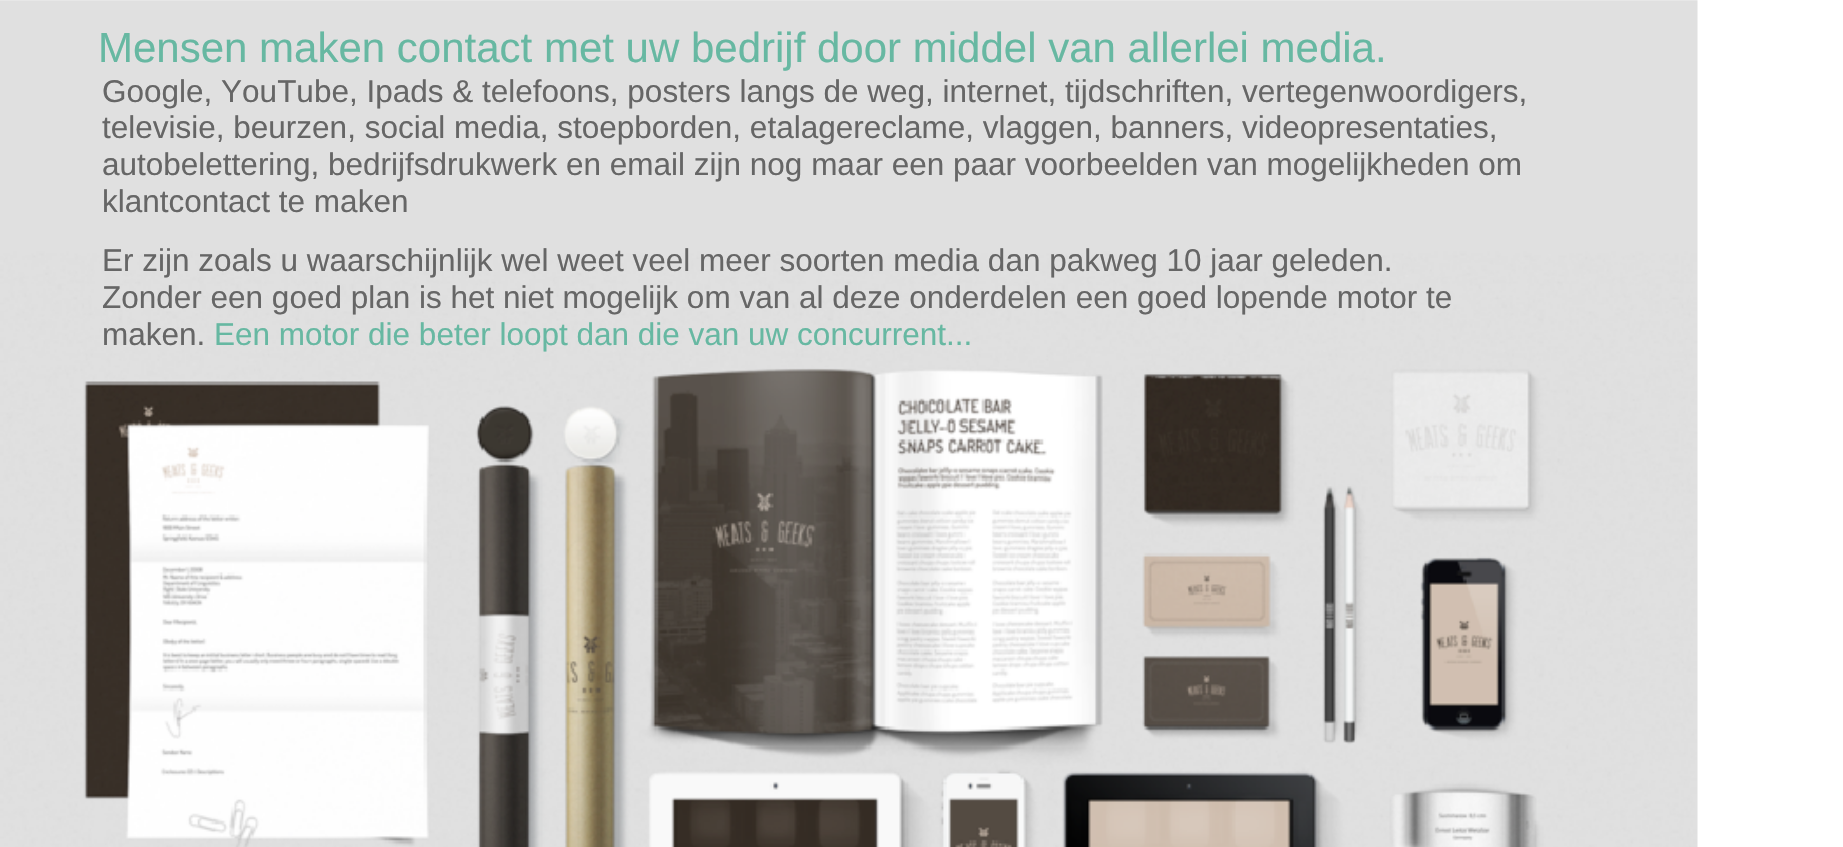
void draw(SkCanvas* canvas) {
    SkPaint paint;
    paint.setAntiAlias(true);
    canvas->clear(0xFFFFFFFF);
    canvas->drawImageRect(SkImages::DeferredFromEncodedData(SkData::MakeFromFileName("img1.png")), SkRect::MakeXYWH(0, 0, 1698, 847), SkSamplingOptions());
    SkFont font1(fontMgr->matchFamilyStyle("Liberation Sans", SkFontStyle::Normal()), 42);
    font1.setSubpixel(true);
    paint.setColor(0xFF67B8A2);
    canvas->drawString("Mensen maken contact met uw bedrijf door middel van allerlei media.", 98, 62, font1, paint);
    SkFont font2(fontMgr->matchFamilyStyle("Liberation Sans", SkFontStyle::Normal()), 31.5f);
    font2.setSubpixel(true);
    paint.setColor(0xFF666666);
    canvas->drawString("Google, YouTube, Ipads & telefoons, posters langs de weg, internet, tijdschriften, vertegenwoordigers,", 102, 102, font2, paint);
    canvas->drawString("televisie, beurzen, social media, stoepborden, etalagereclame, vlaggen, banners, videopresentaties,", 102, 138, font2, paint);
    canvas->drawString("autobelettering, bedrijfsdrukwerk en email zijn nog maar een paar voorbeelden van mogelijkheden om", 102, 175, font2, paint);
    canvas->drawString("klantcontact te maken", 102, 212, font2, paint);
    canvas->drawString("Er zijn zoals u waarschijnlijk wel weet veel meer soorten media dan pakweg 10 jaar geleden.", 102, 271, font2, paint);
    canvas->drawString("Zonder een goed plan is het niet mogelijk om van al deze onderdelen een goed lopende motor te", 102, 308, font2, paint);
    canvas->drawString("maken.", 102, 345, font2, paint);
    paint.setColor(0xFF67B8A2);
    canvas->drawString("Een motor die beter loopt dan die van uw concurrent...", 214, 345, font2, paint);
}
